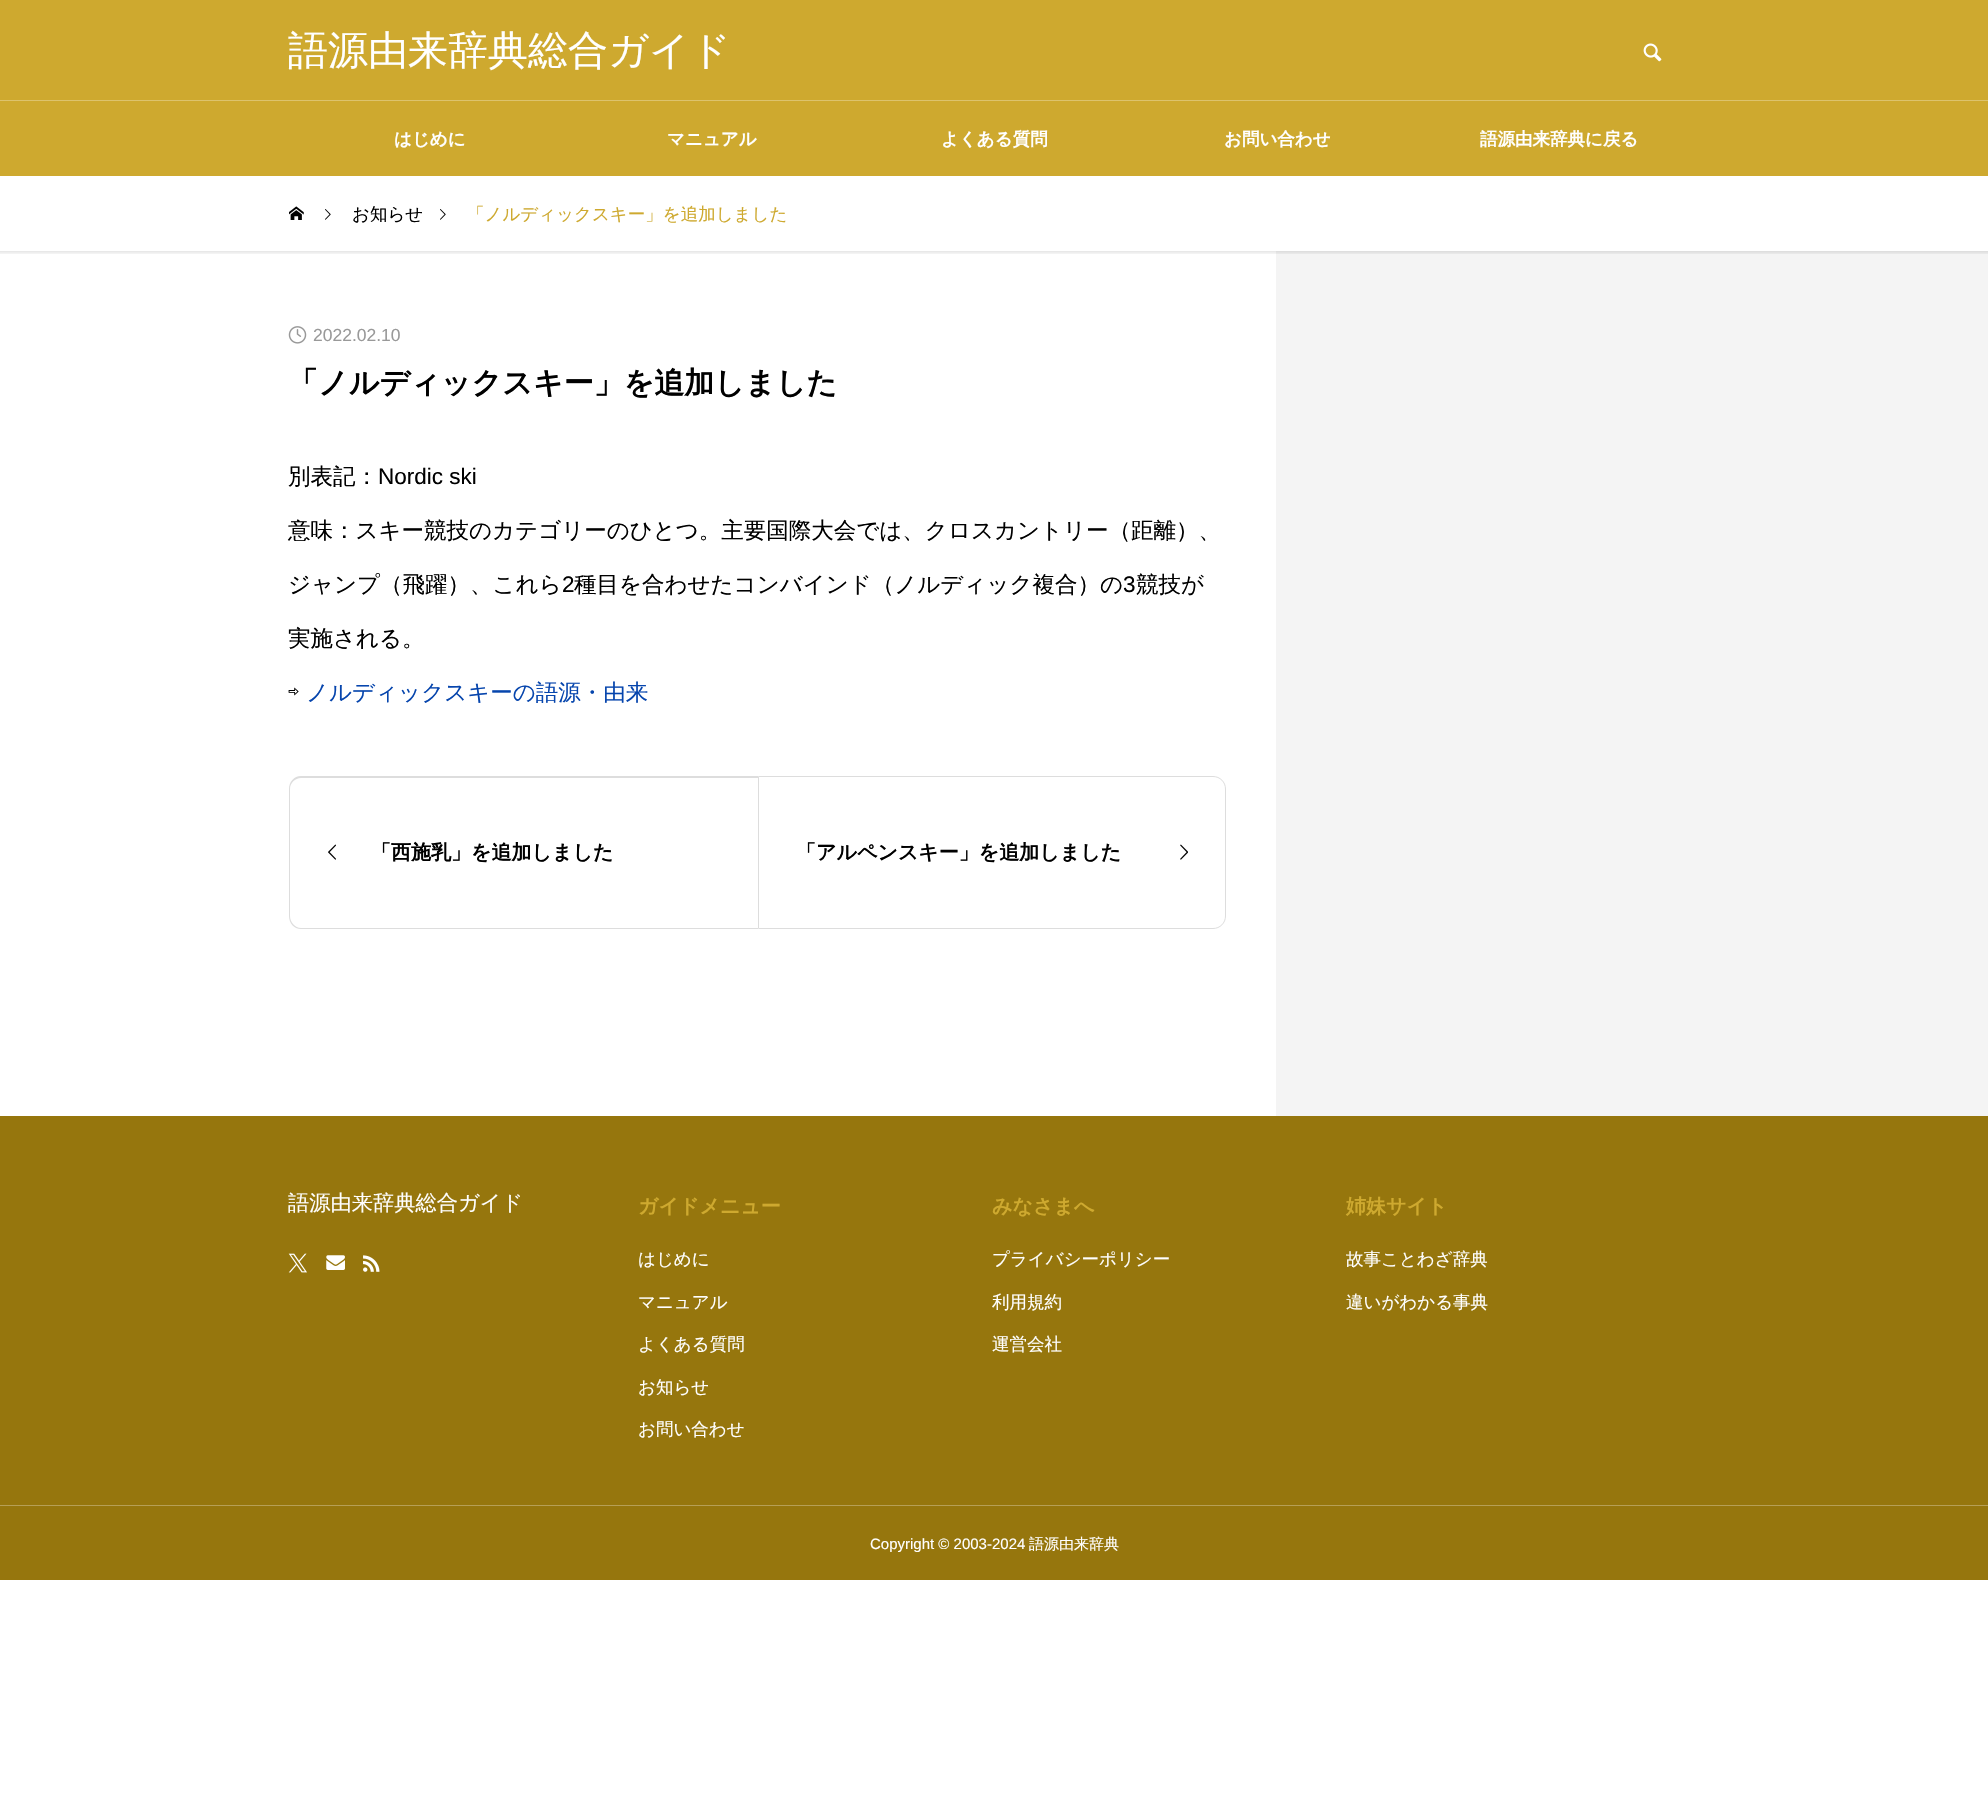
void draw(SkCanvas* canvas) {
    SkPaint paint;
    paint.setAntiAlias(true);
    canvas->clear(0xFFFFFFFF);
    paint.setColor(0xFFCEA92F);
    canvas->drawRect(SkRect::MakeXYWH(0, 0, 1988, 176), paint);
    SkFont font1(fontMgr->matchFamilyStyle("WenQuanYi Zen Hei", SkFontStyle(500, SkFontStyle::kNormal_Width, SkFontStyle::kUpright_Slant)), 40);
    font1.setSubpixel(true);
    paint.setColor(0xFFFFFFFF);
    canvas->drawString("語源由来辞典総合ガイド", 288, 64, font1, paint);
    canvas->drawImageRect(SkImages::DeferredFromEncodedData(SkData::MakeFromFileName("img1.png")), SkRect::MakeXYWH(1643, 43, 19, 19), SkSamplingOptions());
    paint.setColor(0xFFDDC36D);
    canvas->drawRect(SkRect::MakeXYWH(0, 100, 1988, 1), paint);
    SkFont font2(fontMgr->matchFamilyStyle("WenQuanYi Zen Hei", SkFontStyle::Bold()), 17.5f);
    font2.setSubpixel(true);
    paint.setColor(0xFFFFFFFF);
    canvas->drawString("はじめに", 394, 145, font2, paint);
    canvas->drawString("マニュアル", 667, 145, font2, paint);
    canvas->drawString("よくある質問", 941, 145, font2, paint);
    canvas->drawString("お問い合わせ", 1224, 145, font2, paint);
    canvas->drawString("語源由来辞典に戻る", 1480, 145, font2, paint);
    canvas->drawImageRect(SkImages::DeferredFromEncodedData(SkData::MakeFromFileName("img2.png")), SkRect::MakeXYWH(289, 206, 15, 14), SkSamplingOptions());
    canvas->drawImageRect(SkImages::DeferredFromEncodedData(SkData::MakeFromFileName("img3.png")), SkRect::MakeXYWH(325, 209, 6, 11), SkSamplingOptions());
    SkFont font3(fontMgr->matchFamilyStyle("WenQuanYi Zen Hei", SkFontStyle(500, SkFontStyle::kNormal_Width, SkFontStyle::kUpright_Slant)), 17.5f);
    font3.setSubpixel(true);
    paint.setColor(0xFF000000);
    canvas->drawString("お知らせ", 352, 220, font3, paint);
    canvas->drawImageRect(SkImages::DeferredFromEncodedData(SkData::MakeFromFileName("img3.png")), SkRect::MakeXYWH(440, 209, 6, 11), SkSamplingOptions());
    paint.setColor(0xFFCEA92F);
    canvas->drawString("「ノルディックスキー」を追加しました", 467, 220, font3, paint);
    paint.setColor(0xFFF4F4F4);
    canvas->drawRect(SkRect::MakeXYWH(1276, 251, 712, 865), paint);
    {
        const SkColor colors[] = {0x1A000000, 0x03000000};
        const float stops[] = {0, 1};
        const SkPoint ends[] = {{994, 251}, {994, 255}};
        paint.setShader(SkGradientShader::MakeLinear(ends, colors, stops, 2, SkTileMode::kClamp));
        paint.setAlpha(255);
    }
    canvas->drawRect(SkRect::MakeXYWH(0, 251, 1988, 3), paint);
    canvas->drawImageRect(SkImages::DeferredFromEncodedData(SkData::MakeFromFileName("img4.png")), SkRect::MakeXYWH(288, 326, 19, 18), SkSamplingOptions());
    SkFont font4(fontMgr->matchFamilyStyle("Liberation Sans", SkFontStyle::Normal()), 17.5f);
    font4.setSubpixel(true);
    paint.setShader(nullptr);
    paint.setColor(0xFF999999);
    canvas->drawString("2022.02.10", 313, 341, font4, paint);
    SkFont font5(fontMgr->matchFamilyStyle("WenQuanYi Zen Hei", SkFontStyle::Bold()), 30);
    font5.setSubpixel(true);
    paint.setColor(0xFF000000);
    canvas->drawString("「ノルディックスキー」を追加しました", 288, 393, font5, paint);
    SkFont font6(fontMgr->matchFamilyStyle("WenQuanYi Zen Hei", SkFontStyle(500, SkFontStyle::kNormal_Width, SkFontStyle::kUpright_Slant)), 22.5f);
    font6.setSubpixel(true);
    canvas->drawString("別表記：", 288, 484, font6, paint);
    SkFont font7(fontMgr->matchFamilyStyle("Liberation Sans", SkFontStyle::Normal()), 22.5f);
    font7.setSubpixel(true);
    canvas->drawString("Nordic ski", 378, 484, font7, paint);
    canvas->drawString("意味：スキー競技のカテゴリーのひとつ。主要国際大会では、クロスカントリー（距離）、", 288, 538, font6, paint);
    canvas->drawString("ジャンプ（飛躍）、これら", 288, 592, font6, paint);
    canvas->drawString("2", 562, 592, font7, paint);
    canvas->drawString("種目を合わせたコンバインド（ノルディック複合）の", 574, 592, font6, paint);
    canvas->drawString("3", 1123, 592, font7, paint);
    canvas->drawString("競技が", 1136, 592, font6, paint);
    canvas->drawString("実施される。", 288, 646, font6, paint);
    SkFont font8(fontMgr->matchFamilyStyle("IPAPGothic", SkFontStyle::Normal()), 22.5f);
    font8.setSubpixel(true);
    canvas->drawString("⇨", 288, 700, font8, paint);
    paint.setColor(0xFF0645AD);
    canvas->drawString("ノルディックスキーの語源・由来", 306, 700, font6, paint);
    paint.setColor(0xFFDDDDDD);
    canvas->drawPath(SkPathBuilder(SkPathFillType::kEvenOdd).moveTo(301, 776).lineTo(758, 776).lineTo(758, 929).lineTo(301, 929).cubicTo(294, 929, 289, 923, 289, 916).lineTo(289, 789).cubicTo(289, 782, 294, 776, 301, 776).close().moveTo(301, 778).lineTo(758, 778).lineTo(758, 928).lineTo(301, 928).cubicTo(295, 928, 290, 922, 290, 916).lineTo(290, 789).cubicTo(290, 783, 295, 778, 301, 778).close().detach(), paint);
    canvas->drawImageRect(SkImages::DeferredFromEncodedData(SkData::MakeFromFileName("img5.png")), SkRect::MakeXYWH(328, 844, 8, 16), SkSamplingOptions());
    SkFont font9(fontMgr->matchFamilyStyle("WenQuanYi Zen Hei", SkFontStyle::Bold()), 20);
    font9.setSubpixel(true);
    paint.setColor(0xFF000000);
    canvas->drawString("「西施乳」を追加しました", 371, 859, font9, paint);
    paint.setStyle(SkPaint::kStroke_Style);
    paint.setStrokeWidth(1);
    paint.setColor(0xFFDDDDDD);
    canvas->drawPath(SkPathBuilder().moveTo(758.5f, 776.5f).lineTo(1213, 776.5f).cubicTo(1220, 776.5f, 1225.5f, 782, 1225.5f, 789).lineTo(1225.5f, 916).cubicTo(1225.5f, 923, 1220, 928.5f, 1213, 928.5f).lineTo(758.5f, 928.5f).close().detach(), paint);
    paint.setStyle(SkPaint::kFill_Style);
    paint.setColor(0xFF000000);
    canvas->drawString("「アルペンスキー」を追加しました", 796, 859, font9, paint);
    canvas->drawImageRect(SkImages::DeferredFromEncodedData(SkData::MakeFromFileName("img6.png")), SkRect::MakeXYWH(1180, 844, 8, 16), SkSamplingOptions());
    paint.setColor(0xFF96760D);
    canvas->drawRect(SkRect::MakeXYWH(0, 1116, 1988, 464), paint);
    SkFont font10(fontMgr->matchFamilyStyle("WenQuanYi Zen Hei", SkFontStyle(500, SkFontStyle::kNormal_Width, SkFontStyle::kUpright_Slant)), 21.25f);
    font10.setSubpixel(true);
    paint.setColor(0xFFFFFFFF);
    canvas->drawString("語源由来辞典総合ガイド", 288, 1210, font10, paint);
    canvas->drawImageRect(SkImages::DeferredFromEncodedData(SkData::MakeFromFileName("img7.png")), SkRect::MakeXYWH(288, 1253, 19, 20), SkSamplingOptions());
    canvas->drawImageRect(SkImages::DeferredFromEncodedData(SkData::MakeFromFileName("img8.png")), SkRect::MakeXYWH(326, 1255, 19, 15), SkSamplingOptions());
    canvas->drawImageRect(SkImages::DeferredFromEncodedData(SkData::MakeFromFileName("img9.png")), SkRect::MakeXYWH(363, 1255, 17, 17), SkSamplingOptions());
    paint.setColor(0xFFCEA92F);
    canvas->drawString("ガイドメニュー", 638, 1213, font9, paint);
    paint.setColor(0xFFFFFFFF);
    canvas->drawString("はじめに", 638, 1265, font3, paint);
    canvas->drawString("マニュアル", 638, 1308, font3, paint);
    canvas->drawString("よくある質問", 638, 1350, font3, paint);
    canvas->drawString("お知らせ", 638, 1393, font3, paint);
    canvas->drawString("お問い合わせ", 638, 1435, font3, paint);
    paint.setColor(0xFFCEA92F);
    canvas->drawString("みなさまへ", 992, 1213, font9, paint);
    paint.setColor(0xFFFFFFFF);
    canvas->drawString("プライバシーポリシー", 992, 1265, font3, paint);
    canvas->drawString("利用規約", 992, 1308, font3, paint);
    canvas->drawString("運営会社", 992, 1350, font3, paint);
    paint.setColor(0xFFCEA92F);
    canvas->drawString("姉妹サイト", 1346, 1213, font9, paint);
    paint.setColor(0xFFFFFFFF);
    canvas->drawString("故事ことわざ辞典", 1346, 1265, font3, paint);
    canvas->drawString("違いがわかる事典", 1346, 1308, font3, paint);
    paint.setColor(0xFFB69F56);
    canvas->drawRect(SkRect::MakeXYWH(0, 1505, 1988, 1), paint);
    SkFont font11(fontMgr->matchFamilyStyle("Liberation Sans", SkFontStyle::Normal()), 15);
    font11.setSubpixel(true);
    paint.setColor(0xFFFFFFFF);
    canvas->drawString("Copyright © 2003-2024", 870, 1549, font11, paint);
    SkFont font12(fontMgr->matchFamilyStyle("WenQuanYi Zen Hei", SkFontStyle(500, SkFontStyle::kNormal_Width, SkFontStyle::kUpright_Slant)), 15);
    font12.setSubpixel(true);
    canvas->drawString("語源由来辞典", 1029, 1549, font12, paint);
}
